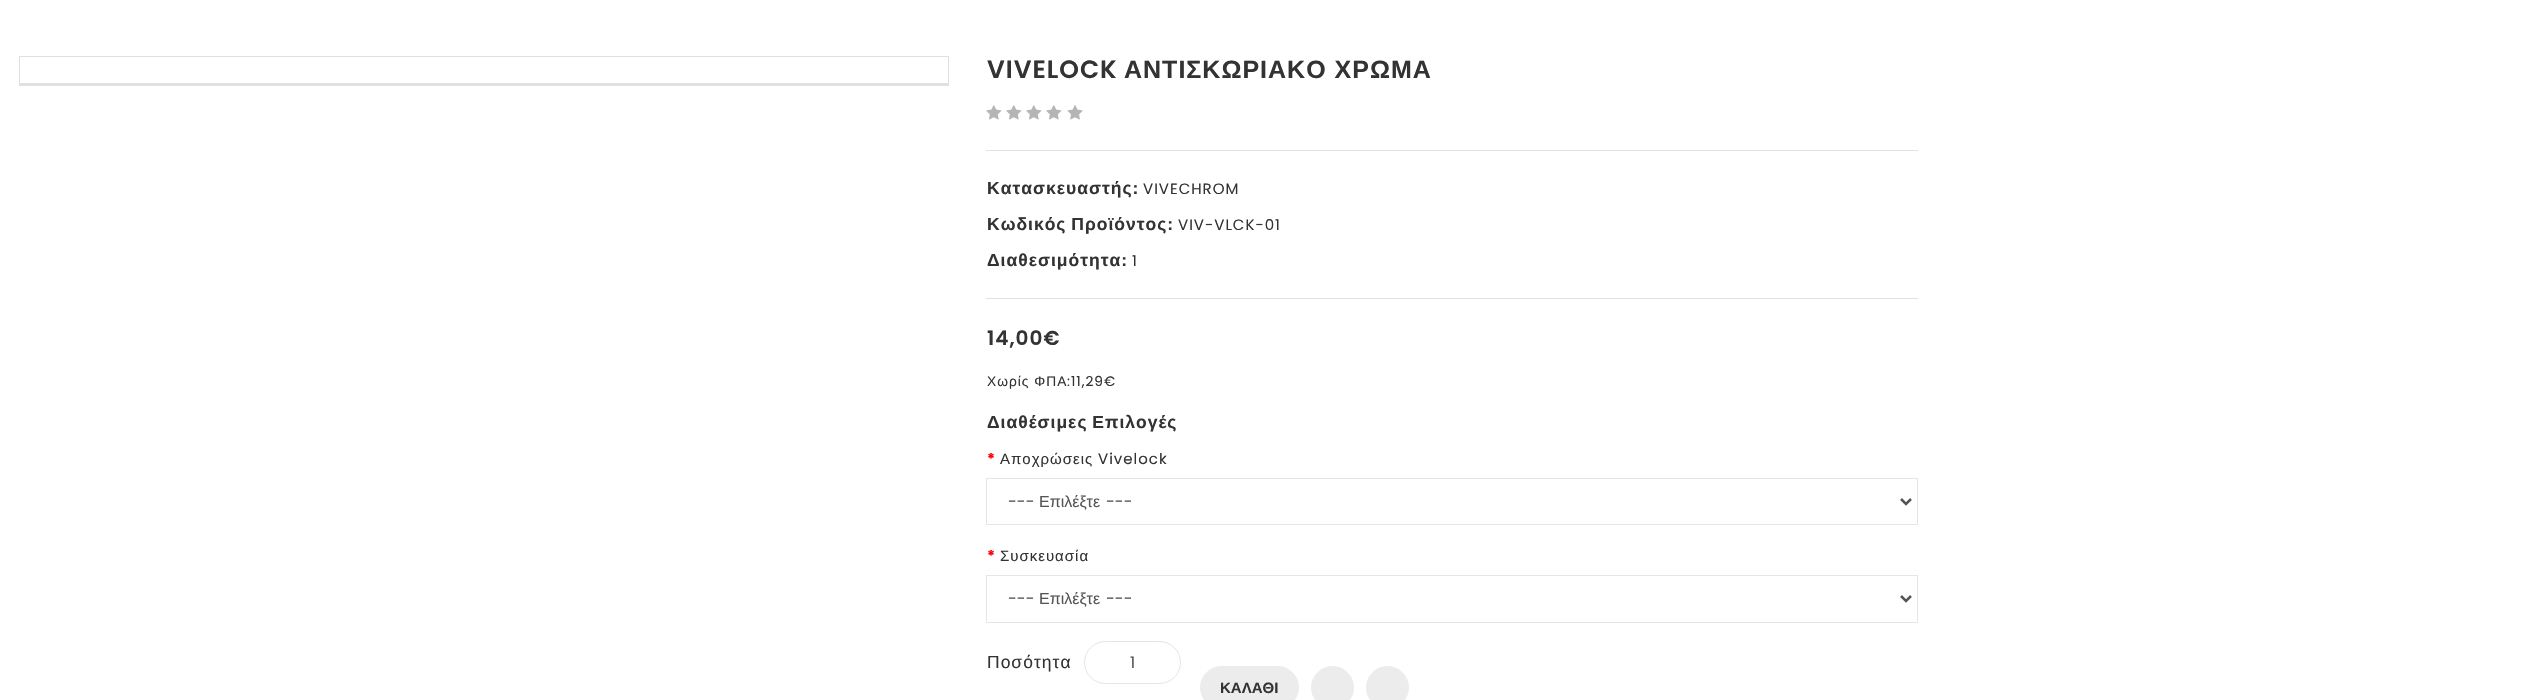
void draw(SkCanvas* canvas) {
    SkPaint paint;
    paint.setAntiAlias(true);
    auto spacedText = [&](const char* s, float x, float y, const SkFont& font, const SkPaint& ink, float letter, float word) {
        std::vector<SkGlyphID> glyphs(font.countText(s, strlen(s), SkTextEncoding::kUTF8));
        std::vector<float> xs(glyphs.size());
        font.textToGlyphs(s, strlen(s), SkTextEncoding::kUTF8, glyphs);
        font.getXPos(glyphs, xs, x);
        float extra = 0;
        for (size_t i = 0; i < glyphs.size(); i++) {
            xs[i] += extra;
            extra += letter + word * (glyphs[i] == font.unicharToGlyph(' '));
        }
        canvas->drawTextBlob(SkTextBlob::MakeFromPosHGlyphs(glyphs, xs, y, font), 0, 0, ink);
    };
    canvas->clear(0xFFFFFFFF);
    paint.setColor(0xFFE0E0E0);
    canvas->drawRect(SkRect::MakeXYWH(19, 56, 930, 1), paint);
    canvas->drawRect(SkRect::MakeXYWH(948, 56, 1, 29), paint);
    canvas->drawRect(SkRect::MakeXYWH(19, 83, 930, 3), paint);
    canvas->drawRect(SkRect::MakeXYWH(19, 56, 1, 29), paint);
    SkFont font1(fontMgr->matchFamilyStyle("Poppins", SkFontStyle(600, SkFontStyle::kNormal_Width, SkFontStyle::kUpright_Slant)), 25);
    font1.setSubpixel(true);
    paint.setColor(0xFF333333);
    spacedText("VIVELOCK", 987, 78, font1, paint, 1, 0);
    SkFont font2(fontMgr->matchFamilyStyle("Liberation Sans", SkFontStyle::Bold()), 25);
    font2.setSubpixel(true);
    spacedText("ΑΝΤΙΣΚΩΡΙΑΚΟ ΧΡΩΜΑ", 1124, 78, font2, paint, 1, 0);
    canvas->drawImageRect(SkImages::DeferredFromEncodedData(SkData::MakeFromFileName("img1.png")), SkRect::MakeXYWH(986, 105, 16, 15), SkSamplingOptions());
    canvas->drawImageRect(SkImages::DeferredFromEncodedData(SkData::MakeFromFileName("img1.png")), SkRect::MakeXYWH(1006, 105, 16, 15), SkSamplingOptions());
    canvas->drawImageRect(SkImages::DeferredFromEncodedData(SkData::MakeFromFileName("img1.png")), SkRect::MakeXYWH(1026, 105, 16, 15), SkSamplingOptions());
    canvas->drawImageRect(SkImages::DeferredFromEncodedData(SkData::MakeFromFileName("img1.png")), SkRect::MakeXYWH(1046, 105, 16, 15), SkSamplingOptions());
    canvas->drawImageRect(SkImages::DeferredFromEncodedData(SkData::MakeFromFileName("img2.png")), SkRect::MakeXYWH(1067, 105, 16, 15), SkSamplingOptions());
    paint.setColor(0xFFE0E0E0);
    canvas->drawRect(SkRect::MakeXYWH(986, 150, 932, 1), paint);
    canvas->drawRect(SkRect::MakeXYWH(986, 298, 932, 1), paint);
    SkFont font3(fontMgr->matchFamilyStyle("Liberation Sans", SkFontStyle::Bold()), 17.5f);
    font3.setSubpixel(true);
    paint.setColor(0xFF333333);
    spacedText("Κατασκευαστής:", 987, 194, font3, paint, 1, 0);
    SkFont font4(fontMgr->matchFamilyStyle("Poppins", SkFontStyle::Normal()), 15);
    font4.setSubpixel(true);
    spacedText("VIVECHROM", 1143, 194, font4, paint, 1, 0);
    spacedText("Κωδικός Προϊόντος:", 987, 230, font3, paint, 1, -1);
    spacedText("VIV-VLCK-01", 1178, 230, font4, paint, 1, 0);
    spacedText("Διαθεσιμότητα:", 987, 266, font3, paint, 1, 0);
    spacedText("1", 1132, 266, font4, paint, 1, 0);
    SkFont font5(fontMgr->matchFamilyStyle("Poppins", SkFontStyle(600, SkFontStyle::kNormal_Width, SkFontStyle::kUpright_Slant)), 20);
    font5.setSubpixel(true);
    spacedText("14,00€", 987, 345, font5, paint, 1, 0);
    SkFont font6(fontMgr->matchFamilyStyle("Liberation Sans", SkFontStyle::Normal()), 13.75f);
    font6.setSubpixel(true);
    spacedText("Χωρίς ΦΠΑ", 987, 386, font6, paint, 1, 0);
    SkFont font7(fontMgr->matchFamilyStyle("Poppins", SkFontStyle::Normal()), 13.75f);
    font7.setSubpixel(true);
    spacedText(":11,29€", 1067, 386, font7, paint, 1, 0);
    spacedText("Διαθέσιμες Επιλογές", 987, 428, font3, paint, 1, -1);
    SkFont font8(fontMgr->matchFamilyStyle("Poppins", SkFontStyle::Bold()), 15);
    font8.setSubpixel(true);
    paint.setColor(0xFFFF0000);
    spacedText("*", 987, 464, font8, paint, 1, 0);
    SkFont font9(fontMgr->matchFamilyStyle("Liberation Sans", SkFontStyle::Normal()), 15);
    font9.setSubpixel(true);
    paint.setColor(0xFF333333);
    spacedText("Αποχρώσεις", 1000, 464, font9, paint, 1, 0);
    spacedText("Vivelock", 1098, 464, font4, paint, 1, 0);
    paint.setStyle(SkPaint::kStroke_Style);
    paint.setStrokeWidth(1);
    paint.setColor(0xFFE5E5E5);
    canvas->drawRect(SkRect::MakeXYWH(986.5f, 478.5f, 931, 46), paint);
    paint.setStrokeWidth(2.5f);
    paint.setColor(0xFF555555);
    canvas->drawPath(SkPathBuilder().moveTo(1901, 499).lineTo(1906, 504).lineTo(1911, 499).detach(), paint);
    SkFont font10(fontMgr->matchFamilyStyle("Poppins", SkFontStyle::Normal()), 16);
    font10.setSubpixel(true);
    paint.setStyle(SkPaint::kFill_Style);
    canvas->drawString("---", 1008, 507, font10, paint);
    SkFont font11(fontMgr->matchFamilyStyle("Liberation Sans", SkFontStyle::Normal()), 16);
    font11.setSubpixel(true);
    canvas->drawString("Επιλέξτε", 1039, 507, font11, paint);
    canvas->drawString("---", 1106, 507, font10, paint);
    paint.setColor(0xFFFF0000);
    spacedText("*", 987, 561, font8, paint, 1, 0);
    paint.setColor(0xFF333333);
    spacedText("Συσκευασία", 1000, 561, font9, paint, 1, 0);
    paint.setStyle(SkPaint::kStroke_Style);
    paint.setStrokeWidth(1);
    paint.setColor(0xFFE5E5E5);
    canvas->drawRect(SkRect::MakeXYWH(986.5f, 575.5f, 931, 47), paint);
    paint.setStrokeWidth(2.5f);
    paint.setColor(0xFF555555);
    canvas->drawPath(SkPathBuilder().moveTo(1901, 596).lineTo(1906, 601).lineTo(1911, 596).detach(), paint);
    paint.setStyle(SkPaint::kFill_Style);
    canvas->drawString("---", 1008, 604, font10, paint);
    canvas->drawString("Επιλέξτε", 1039, 604, font11, paint);
    canvas->drawString("---", 1106, 604, font10, paint);
    SkFont font12(fontMgr->matchFamilyStyle("Liberation Sans", SkFontStyle::Normal()), 17.5f);
    font12.setSubpixel(true);
    paint.setColor(0xFF333333);
    spacedText("Ποσότητα", 987, 668, font12, paint, 1, 0);
    paint.setStyle(SkPaint::kStroke_Style);
    paint.setStrokeWidth(1);
    paint.setColor(0xFFE5E5E5);
    canvas->drawRoundRect(SkRect::MakeXYWH(1084.5f, 641.5f, 96, 42), 21, 21, paint);
    paint.setStyle(SkPaint::kFill_Style);
    paint.setColor(0xFF555555);
    canvas->drawString("1", 1130, 668, font10, paint);
    paint.setColor(0xFFECECEC);
    canvas->drawRoundRect(SkRect::MakeXYWH(1200.5f, 666.5f, 98, 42), 21, 21, paint);
    paint.setStyle(SkPaint::kStroke_Style);
    canvas->drawRoundRect(SkRect::MakeXYWH(1200.5f, 666.5f, 98, 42), 21, 21, paint);
    SkFont font13(fontMgr->matchFamilyStyle("Liberation Sans", SkFontStyle::Bold()), 15);
    font13.setSubpixel(true);
    paint.setStyle(SkPaint::kFill_Style);
    paint.setColor(0xFF333333);
    canvas->drawString("ΚΑΛΑΘΙ", 1220, 693, font13, paint);
    paint.setColor(0xFFECECEC);
    canvas->drawCircle(1332.5f, 687.5f, 21, paint);
    paint.setStyle(SkPaint::kStroke_Style);
    canvas->drawCircle(1332.5f, 687.5f, 21, paint);
    paint.setStyle(SkPaint::kFill_Style);
    canvas->drawCircle(1387.5f, 687.5f, 21, paint);
    paint.setStyle(SkPaint::kStroke_Style);
    canvas->drawCircle(1387.5f, 687.5f, 21, paint);
}
